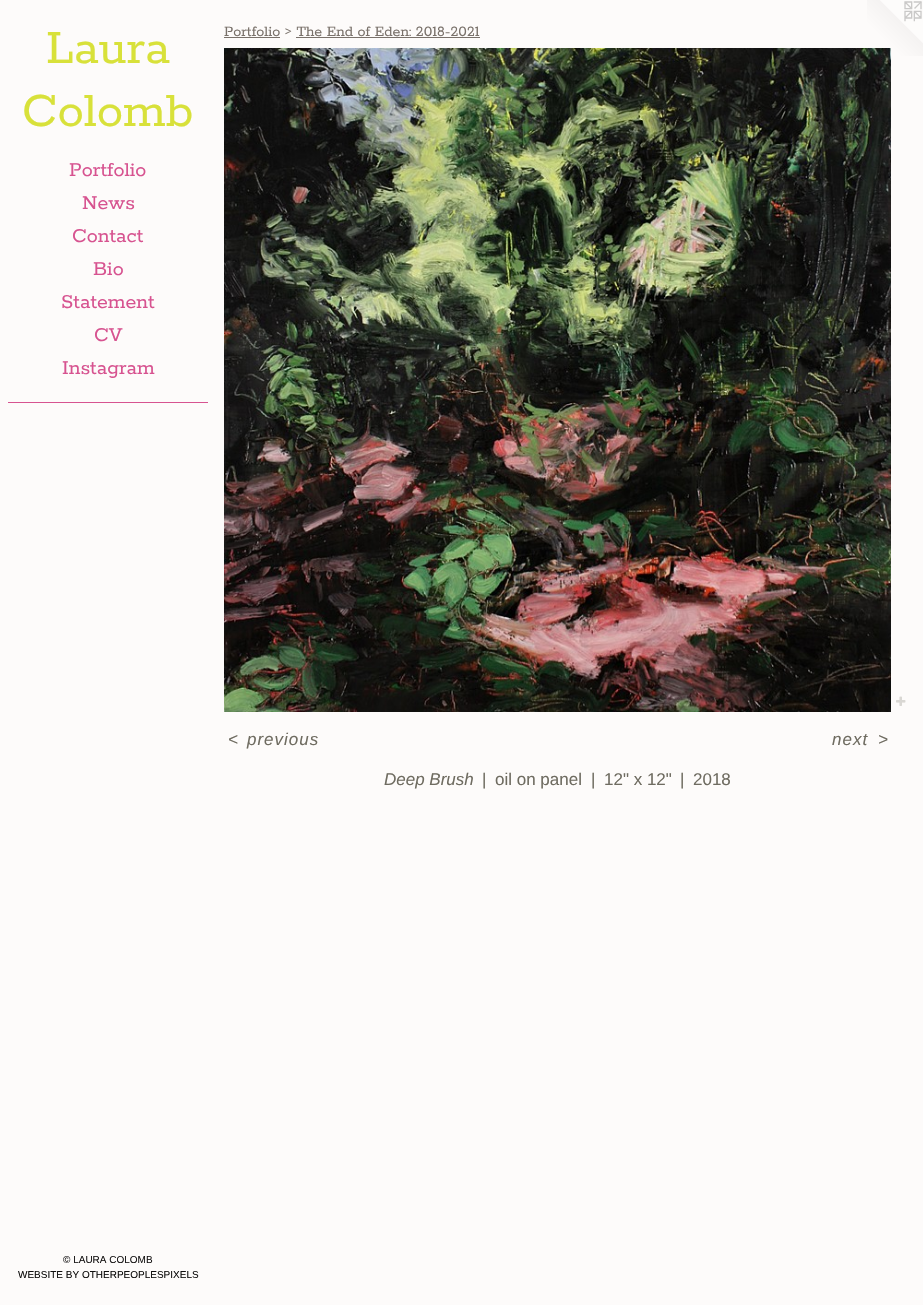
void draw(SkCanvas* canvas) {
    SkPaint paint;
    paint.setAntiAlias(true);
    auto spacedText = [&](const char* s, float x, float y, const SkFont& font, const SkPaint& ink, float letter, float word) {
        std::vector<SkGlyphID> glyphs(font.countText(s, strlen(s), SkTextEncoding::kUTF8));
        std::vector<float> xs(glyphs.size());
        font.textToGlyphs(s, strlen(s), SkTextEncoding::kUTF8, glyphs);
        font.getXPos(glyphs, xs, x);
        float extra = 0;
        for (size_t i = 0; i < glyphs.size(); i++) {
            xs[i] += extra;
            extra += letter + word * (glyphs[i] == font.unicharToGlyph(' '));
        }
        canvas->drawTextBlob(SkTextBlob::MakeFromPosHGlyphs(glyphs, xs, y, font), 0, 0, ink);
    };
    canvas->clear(0xFFFDFBFA);
    SkFont font1(fontMgr->matchFamilyStyle("Rokkitt", SkFontStyle(600, SkFontStyle::kNormal_Width, SkFontStyle::kUpright_Slant)), 53);
    font1.setSubpixel(true);
    paint.setColor(0xFFD8E13A);
    canvas->drawString("Laura", 46, 63, font1, paint);
    canvas->drawString("Colomb", 22, 126, font1, paint);
    SkFont font2(fontMgr->matchFamilyStyle("Rokkitt", SkFontStyle(600, SkFontStyle::kNormal_Width, SkFontStyle::kUpright_Slant)), 22);
    font2.setSubpixel(true);
    paint.setColor(0xFFD75390);
    canvas->drawString("Portfolio", 69, 176, font2, paint);
    canvas->drawString("News", 82, 209, font2, paint);
    canvas->drawString("Contact", 72, 242, font2, paint);
    canvas->drawString("Bio", 93, 275, font2, paint);
    canvas->drawString("Statement", 61, 308, font2, paint);
    canvas->drawString("CV", 94, 341, font2, paint);
    canvas->drawString("Instagram", 62, 374, font2, paint);
    canvas->drawRect(SkRect::MakeXYWH(8, 402, 200, 1), paint);
    SkFont font3(fontMgr->matchFamilyStyle("Liberation Sans", SkFontStyle::Normal()), 10);
    font3.setSubpixel(true);
    paint.setColor(0xFF181616);
    canvas->drawString("© LAURA COLOMB", 63, 1263, font3, paint);
    paint.setColor(0xFF100F0E);
    canvas->drawString("WEBSITE BY OTHERPEOPLESPIXELS", 18, 1278, font3, paint);
    SkFont font4(fontMgr->matchFamilyStyle("Rokkitt", SkFontStyle(600, SkFontStyle::kNormal_Width, SkFontStyle::kUpright_Slant)), 16);
    font4.setSubpixel(true);
    paint.setColor(0xFF79716A);
    canvas->drawString("Portfolio > The End of Eden: 2018-2021", 224, 36, font4, paint);
    canvas->drawRect(SkRect::MakeXYWH(224, 37, 56, 1), paint);
    canvas->drawRect(SkRect::MakeXYWH(296, 37, 184, 1), paint);
    canvas->drawImageRect(SkImages::DeferredFromEncodedData(SkData::MakeFromFileName("img3.png")), SkRect::MakeXYWH(867, 0, 56, 56), SkSamplingOptions());
    canvas->drawImageRect(SkImages::DeferredFromEncodedData(SkData::MakeFromFileName("img1.png")), SkRect::MakeXYWH(224, 48, 667, 664), SkSamplingOptions());
    canvas->drawImageRect(SkImages::DeferredFromEncodedData(SkData::MakeFromFileName("img2.png")), SkRect::MakeXYWH(896, 696, 10, 10), SkSamplingOptions());
    SkFont font5(fontMgr->matchFamilyStyle("Liberation Sans", SkFontStyle::Italic()), 17);
    font5.setSubpixel(true);
    paint.setColor(0xFF6F6C61);
    spacedText("<", 228, 745, font5, paint, 1, 0);
    spacedText("previous", 247, 745, font5, paint, 1, 0);
    spacedText("next", 832, 745, font5, paint, 1, 0);
    spacedText(">", 878, 745, font5, paint, 1, 0);
    canvas->drawString("Deep Brush", 384, 785, font5, paint);
    SkFont font6(fontMgr->matchFamilyStyle("Liberation Sans", SkFontStyle::Normal()), 17);
    font6.setSubpixel(true);
    canvas->drawString("|", 482, 785, font6, paint);
    canvas->drawString("oil on panel", 495, 785, font6, paint);
    canvas->drawString("|", 591, 785, font6, paint);
    canvas->drawString("12\" x 12\"", 604, 785, font6, paint);
    canvas->drawString("|", 680, 785, font6, paint);
    canvas->drawString("2018", 693, 785, font6, paint);
}
